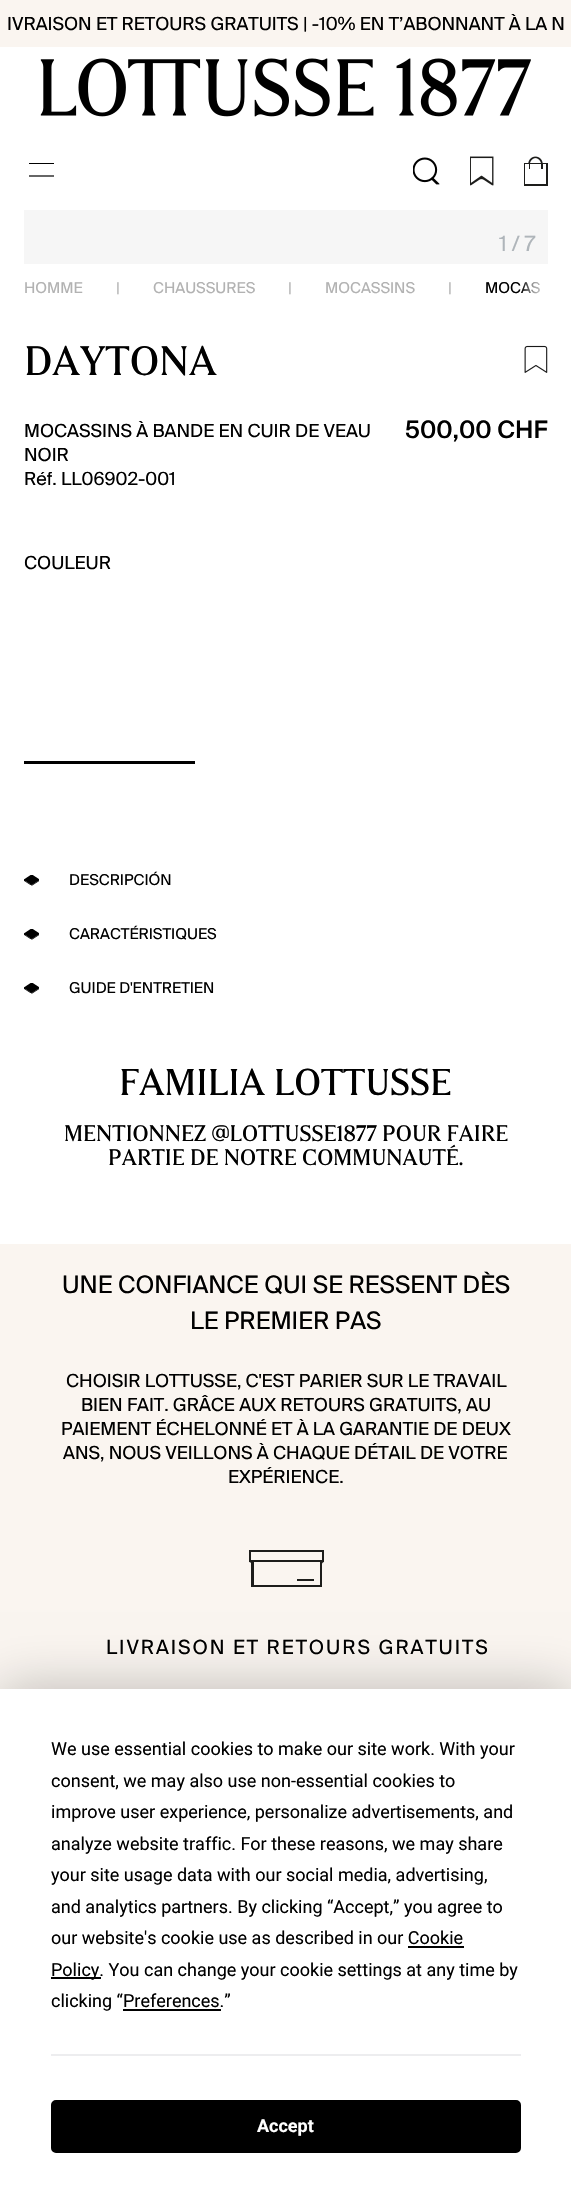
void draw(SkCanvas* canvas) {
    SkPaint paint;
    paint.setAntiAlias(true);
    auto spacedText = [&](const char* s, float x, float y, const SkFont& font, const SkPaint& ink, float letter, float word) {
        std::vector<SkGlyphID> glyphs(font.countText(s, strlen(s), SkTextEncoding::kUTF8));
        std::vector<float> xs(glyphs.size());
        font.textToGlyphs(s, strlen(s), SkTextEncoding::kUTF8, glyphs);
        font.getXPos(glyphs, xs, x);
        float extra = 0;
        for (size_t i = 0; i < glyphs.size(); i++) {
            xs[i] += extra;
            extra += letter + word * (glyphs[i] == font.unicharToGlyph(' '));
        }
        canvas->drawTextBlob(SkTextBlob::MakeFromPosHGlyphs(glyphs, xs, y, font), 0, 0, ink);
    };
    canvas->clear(0xFFFFFFFF);
    paint.setColor(0xFFFAF5F0);
    canvas->drawRect(SkRect::MakeXYWH(0, 0, 571, 47), paint);
    SkFont font1(fontMgr->matchFamilyStyle("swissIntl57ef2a", SkFontStyle::Normal()), 18);
    font1.setSubpixel(true);
    paint.setColor(0xFF000000);
    canvas->drawString("IVRAISON ET RETOURS GRATUITS | -10 % EN T’ABONNANT À LA N", 7, 30, font1, paint);
    canvas->drawImageRect(SkImages::DeferredFromEncodedData(SkData::MakeFromFileName("img1.png")), SkRect::MakeXYWH(40, 58, 491, 59), SkSamplingOptions());
    canvas->drawRect(SkRect::MakeXYWH(29, 163, 25, 1), paint);
    paint.setStyle(SkPaint::kStroke_Style);
    paint.setStrokeWidth(1.2f);
    canvas->drawPath(SkPathBuilder().moveTo(29, 176).lineTo(54, 176).detach(), paint);
    canvas->drawImageRect(SkImages::DeferredFromEncodedData(SkData::MakeFromFileName("img2.png")), SkRect::MakeXYWH(413, 157, 27, 28), SkSamplingOptions());
    canvas->drawImageRect(SkImages::DeferredFromEncodedData(SkData::MakeFromFileName("img3.png")), SkRect::MakeXYWH(470, 156, 24, 30), SkSamplingOptions());
    canvas->drawImageRect(SkImages::DeferredFromEncodedData(SkData::MakeFromFileName("img4.png")), SkRect::MakeXYWH(524, 156, 24, 30), SkSamplingOptions());
    paint.setStyle(SkPaint::kFill_Style);
    paint.setColor(0xFFF6F6F6);
    canvas->drawRect(SkRect::MakeXYWH(24, 210, 524, 54), paint);
    SkFont font2(fontMgr->matchFamilyStyle("swissIntl57ef2a", SkFontStyle::Normal()), 21);
    font2.setSubpixel(true);
    paint.setColor(0xFFAFB5BA);
    canvas->drawString("1 / 7", 499, 251, font2, paint);
    SkFont font3(fontMgr->matchFamilyStyle("swissIntl57ef2a", SkFontStyle::Normal()), 15);
    font3.setSubpixel(true);
    paint.setColor(0xFFB2B2B2);
    canvas->drawString("HOMME", 24, 293, font3, paint);
    canvas->drawString("|", 116, 293, font3, paint);
    canvas->drawString("CHAUSSURES", 153, 293, font3, paint);
    canvas->drawString("|", 288, 293, font3, paint);
    canvas->drawString("MOCASSINS", 325, 293, font3, paint);
    canvas->drawString("|", 448, 293, font3, paint);
    paint.setColor(0xFF000000);
    canvas->drawString("MOCAS", 485, 293, font3, paint);
    {
        const SkColor colors[] = {0x00FFFFFF, 0x99FFFFFF, 0xFFFFFFFF};
        const float stops[] = {0, 0.4f, 1};
        const SkPoint ends[] = {{521, 288}, {551, 288}};
        paint.setShader(SkGradientShader::MakeLinear(ends, colors, stops, 3, SkTileMode::kClamp));
        paint.setAlpha(255);
    }
    canvas->drawRect(SkRect::MakeXYWH(521, 281, 19, 13), paint);
    SkFont font4(fontMgr->matchFamilyStyle("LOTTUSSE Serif", SkFontStyle::Normal()), 33);
    font4.setSubpixel(true);
    paint.setShader(nullptr);
    paint.setColor(0xFF000000);
    canvas->drawString("DAYTONA", 24, 375, font4, paint);
    canvas->drawImageRect(SkImages::DeferredFromEncodedData(SkData::MakeFromFileName("img5.png")), SkRect::MakeXYWH(524, 345, 24, 28), SkSamplingOptions());
    SkFont font5(fontMgr->matchFamilyStyle("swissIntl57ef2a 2", SkFontStyle::Normal()), 18);
    font5.setSubpixel(true);
    canvas->drawString("MOCASSINS À BANDE EN CUIR DE VEAU", 24, 437, font5, paint);
    canvas->drawString("NOIR", 24, 461, font5, paint);
    canvas->drawString("Réf. LL06902-001", 24, 485, font5, paint);
    SkFont font6(fontMgr->matchFamilyStyle("swissIntl57ef2a", SkFontStyle(500, SkFontStyle::kNormal_Width, SkFontStyle::kUpright_Slant)), 24);
    font6.setSubpixel(true);
    canvas->drawString("500,00 CHF", 405, 438, font6, paint);
    canvas->drawString("COULEUR", 24, 569, font5, paint);
    canvas->drawRect(SkRect::MakeXYWH(24, 761, 171, 3), paint);
    canvas->drawImageRect(SkImages::DeferredFromEncodedData(SkData::MakeFromFileName("img6.png")), SkRect::MakeXYWH(24, 875, 15, 10), SkSamplingOptions());
    canvas->drawImageRect(SkImages::DeferredFromEncodedData(SkData::MakeFromFileName("img7.png")), SkRect::MakeXYWH(24, 876, 15, 10), SkSamplingOptions());
    SkFont font7(fontMgr->matchFamilyStyle("swissIntl57ef2a 2", SkFontStyle::Normal()), 15);
    font7.setSubpixel(true);
    canvas->drawString("DESCRIPCIÓN", 69, 885, font7, paint);
    canvas->drawImageRect(SkImages::DeferredFromEncodedData(SkData::MakeFromFileName("img6.png")), SkRect::MakeXYWH(24, 929, 15, 10), SkSamplingOptions());
    canvas->drawImageRect(SkImages::DeferredFromEncodedData(SkData::MakeFromFileName("img7.png")), SkRect::MakeXYWH(24, 930, 15, 10), SkSamplingOptions());
    canvas->drawString("CARACTÉRISTIQUES", 69, 939, font7, paint);
    canvas->drawImageRect(SkImages::DeferredFromEncodedData(SkData::MakeFromFileName("img6.png")), SkRect::MakeXYWH(24, 983, 15, 10), SkSamplingOptions());
    canvas->drawImageRect(SkImages::DeferredFromEncodedData(SkData::MakeFromFileName("img7.png")), SkRect::MakeXYWH(24, 984, 15, 10), SkSamplingOptions());
    canvas->drawString("GUIDE D'ENTRETIEN", 69, 993, font7, paint);
    SkFont font8(fontMgr->matchFamilyStyle("LOTTUSSE Serif", SkFontStyle::Normal()), 30);
    font8.setSubpixel(true);
    canvas->drawString("FAMILIA LOTTUSSE", 119, 1095, font8, paint);
    SkFont font9(fontMgr->matchFamilyStyle("LOTTUSSE Serif", SkFontStyle::Normal()), 18);
    font9.setSubpixel(true);
    canvas->drawString("Mentionnez @lottusse1877 pour faire", 64, 1141, font9, paint);
    canvas->drawString("partie de notre communauté.", 108, 1165, font9, paint);
    paint.setColor(0xFFFAF5F0);
    canvas->drawRect(SkRect::MakeXYWH(0, 1244, 571, 445), paint);
    SkFont font10(fontMgr->matchFamilyStyle("swissIntl57ef2a", SkFontStyle::Normal()), 24);
    font10.setSubpixel(true);
    paint.setColor(0xFF000000);
    canvas->drawString("UNE CONFIANCE QUI SE RESSENT DÈS", 62, 1293, font10, paint);
    canvas->drawString("LE PREMIER PAS", 190, 1329, font10, paint);
    canvas->drawString("CHOISIR LOTTUSSE, C'EST PARIER SUR LE TRAVAIL", 66, 1387, font5, paint);
    canvas->drawString("BIEN FAIT. GRÂCE AUX RETOURS GRATUITS, AU", 81, 1411, font5, paint);
    canvas->drawString("PAIEMENT ÉCHELONNÉ ET À LA GARANTIE DE DEUX", 61, 1435, font5, paint);
    canvas->drawString("ANS, NOUS VEILLONS À CHAQUE DÉTAIL DE VOTRE", 63, 1459, font5, paint);
    canvas->drawString("EXPÉRIENCE.", 228, 1483, font5, paint);
    paint.setColor(0xFF1D1D1B);
    canvas->drawPath(SkPathBuilder().moveTo(249, 1550).lineTo(249, 1562).cubicTo(251, 1562, 251, 1563, 251, 1564).lineTo(251, 1587).lineTo(322, 1587).lineTo(322, 1564).cubicTo(322, 1563, 323, 1562, 324, 1562).lineTo(324, 1550).close().moveTo(320, 1585).lineTo(254, 1585).lineTo(254, 1562).lineTo(320, 1562).close().moveTo(322, 1560).lineTo(251, 1560).lineTo(251, 1552).lineTo(322, 1552).close().detach(), paint);
    canvas->drawRect(SkRect::MakeXYWH(297, 1579, 17, 2), paint);
    SkFont font11(fontMgr->matchFamilyStyle("swissIntl57ef2a 2", SkFontStyle::Normal()), 19.5f);
    font11.setSubpixel(true);
    paint.setColor(0xFF000000);
    spacedText("LIVRAISON ET RETOURS GRATUITS", 106, 1654, font11, paint, 1.95f, 0);
    paint.setColor(0x40000000);
    paint.setMaskFilter(SkMaskFilter::MakeBlur(kNormal_SkBlurStyle, 26));
    canvas->drawRect(SkRect::MakeXYWH(0, 1689, 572, 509), paint);
    paint.setMaskFilter(nullptr);
    paint.setColor(0xFFFFFFFF);
    canvas->drawRect(SkRect::MakeXYWH(0, 1689, 571, 508), paint);
    SkFont font12(fontMgr->matchFamilyStyle("Roboto", SkFontStyle::Normal()), 18);
    font12.setSubpixel(true);
    paint.setColor(0xFF000000);
    canvas->drawString("We use essential cookies to make our site work. With your", 51, 1755, font12, paint);
    canvas->drawString("consent, we may also use non-essential cookies to", 51, 1787, font12, paint);
    canvas->drawString("improve user experience, personalize advertisements, and", 51, 1818, font12, paint);
    canvas->drawString("analyze website traffic. For these reasons, we may share", 51, 1850, font12, paint);
    canvas->drawString("your site usage data with our social media, advertising,", 51, 1881, font12, paint);
    canvas->drawString("and analytics partners. By clicking “Accept,” you agree to", 51, 1913, font12, paint);
    canvas->drawString("our website's cookie use as described in our Cookie", 51, 1944, font12, paint);
    canvas->drawRect(SkRect::MakeXYWH(51, 1977, 50, 2), paint);
    canvas->drawString("Policy. You can change your cookie settings at any time by", 51, 1976, font12, paint);
    canvas->drawRect(SkRect::MakeXYWH(408, 1946, 56, 2), paint);
    canvas->drawString("clicking “Preferences.”", 51, 2007, font12, paint);
    canvas->drawRect(SkRect::MakeXYWH(123, 2009, 98, 2), paint);
    paint.setColor(0xFFEDEDEF);
    canvas->drawRect(SkRect::MakeXYWH(51, 2054, 470, 2), paint);
    paint.setColor(0xFF000000);
    canvas->drawRoundRect(SkRect::MakeXYWH(52, 2101, 468, 51), 4, 4, paint);
    paint.setStyle(SkPaint::kStroke_Style);
    paint.setStrokeWidth(2);
    canvas->drawRoundRect(SkRect::MakeXYWH(52, 2101, 468, 51), 4, 4, paint);
    SkFont font13(fontMgr->matchFamilyStyle("Roboto", SkFontStyle::Bold()), 18);
    font13.setSubpixel(true);
    paint.setStyle(SkPaint::kFill_Style);
    paint.setColor(0xFFFFFFFF);
    canvas->drawString("Accept", 257, 2132, font13, paint);
}
